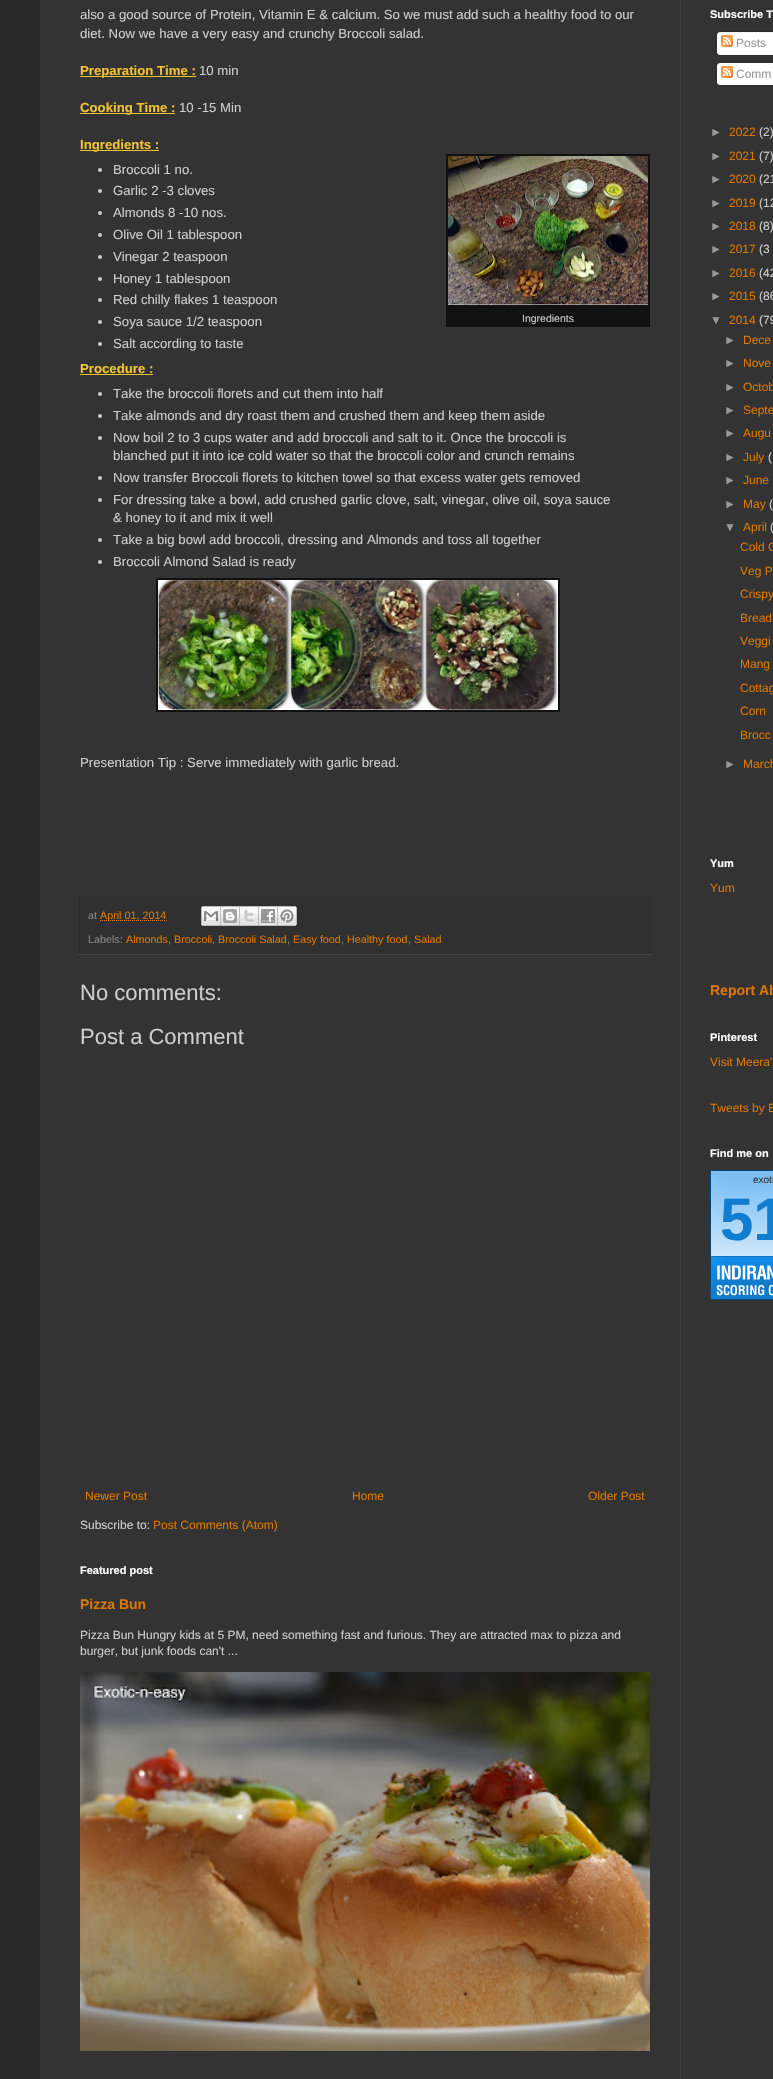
void draw(SkCanvas* canvas) {
    SkPaint paint;
    paint.setAntiAlias(true);
    canvas->clear(0xFF292929);
    paint.setColor(0xFF333333);
    canvas->drawRect(SkRect::MakeXYWH(40, 0, 733, 2079), paint);
    paint.setColor(0xFF404040);
    canvas->drawRect(SkRect::MakeXYWH(680, 0, 1, 2079), paint);
    SkFont font1(fontMgr->matchFamilyStyle("Liberation Sans", SkFontStyle::Normal()), 13.2f);
    font1.setSubpixel(true);
    paint.setColor(0xFFCCCCCC);
    canvas->drawString("also a good source of Protein, Vitamin E & calcium. So we must add such a healthy food to our", 80, 19, font1, paint);
    canvas->drawString("diet. Now we have a very easy and crunchy Broccoli salad.", 80, 38, font1, paint);
    paint.setColor(0xFFF1C232);
    canvas->drawRect(SkRect::MakeXYWH(80, 76, 116, 1), paint);
    SkFont font2(fontMgr->matchFamilyStyle("Liberation Sans", SkFontStyle::Bold()), 13.2f);
    font2.setSubpixel(true);
    canvas->drawString("Preparation Time :", 80, 75, font2, paint);
    paint.setColor(0xFFCCCCCC);
    canvas->drawString("10 min", 199, 75, font1, paint);
    paint.setColor(0xFFF1C232);
    canvas->drawRect(SkRect::MakeXYWH(80, 113, 95, 1), paint);
    canvas->drawString("Cooking Time :", 80, 112, font2, paint);
    paint.setColor(0xFFCCCCCC);
    canvas->drawString("10 -15 Min", 179, 112, font1, paint);
    paint.setColor(0xFFF1C232);
    canvas->drawRect(SkRect::MakeXYWH(80, 150, 79, 1), paint);
    canvas->drawString("Ingredients :", 80, 149, font2, paint);
    paint.setColor(0xFFCCCCCC);
    canvas->drawCircle(100, 170, 2, paint);
    canvas->drawString("Broccoli 1 no.", 113, 174, font1, paint);
    canvas->drawCircle(100, 191, 2, paint);
    canvas->drawString("Garlic 2 -3 cloves", 113, 195, font1, paint);
    canvas->drawCircle(100, 213, 2, paint);
    canvas->drawString("Almonds 8 -10 nos.", 113, 217, font1, paint);
    canvas->drawCircle(100, 235, 2, paint);
    canvas->drawString("Olive Oil 1 tablespoon", 113, 239, font1, paint);
    canvas->drawCircle(100, 257, 2, paint);
    canvas->drawString("Vinegar 2 teaspoon", 113, 261, font1, paint);
    canvas->drawCircle(100, 279, 2, paint);
    canvas->drawString("Honey 1 tablespoon", 113, 283, font1, paint);
    canvas->drawCircle(100, 300, 2, paint);
    canvas->drawString("Red chilly flakes 1 teaspoon", 113, 304, font1, paint);
    canvas->drawCircle(100, 322, 2, paint);
    canvas->drawString("Soya sauce 1/2 teaspoon", 113, 326, font1, paint);
    canvas->drawCircle(100, 344, 2, paint);
    canvas->drawString("Salt according to taste", 113, 348, font1, paint);
    paint.setColor(0xFF111111);
    canvas->drawRect(SkRect::MakeXYWH(446, 154, 204, 173), paint);
    canvas->drawImageRect(SkImages::DeferredFromEncodedData(SkData::MakeFromFileName("img1.png")), SkRect::MakeXYWH(448, 156, 200, 149), SkSamplingOptions());
    SkFont font3(fontMgr->matchFamilyStyle("Liberation Sans", SkFontStyle::Normal()), 10.5f);
    font3.setSubpixel(true);
    paint.setColor(0xFFCCCCCC);
    canvas->drawString("Ingredients", 522, 322, font3, paint);
    paint.setColor(0xFFF1C232);
    canvas->drawString("Procedure :", 80, 373, font2, paint);
    canvas->drawRect(SkRect::MakeXYWH(80, 374, 73, 1), paint);
    paint.setColor(0xFFCCCCCC);
    canvas->drawCircle(100, 394, 2, paint);
    canvas->drawString("Take the broccoli florets and cut them into half", 113, 398, font1, paint);
    canvas->drawCircle(100, 416, 2, paint);
    canvas->drawString("Take almonds and dry roast them and crushed them and keep them aside", 113, 420, font1, paint);
    canvas->drawCircle(100, 438, 2, paint);
    canvas->drawString("Now boil 2 to 3 cups water and add broccoli and salt to it. Once the broccoli is", 113, 442, font1, paint);
    canvas->drawString("blanched put it into ice cold water so that the broccoli color and crunch remains", 113, 460, font1, paint);
    canvas->drawCircle(100, 478, 2, paint);
    canvas->drawString("Now transfer Broccoli florets to kitchen towel so that excess water gets removed", 113, 482, font1, paint);
    canvas->drawCircle(100, 500, 2, paint);
    canvas->drawString("For dressing take a bowl, add crushed garlic clove, salt, vinegar, olive oil, soya sauce", 113, 504, font1, paint);
    canvas->drawString("& honey to it and mix it well", 113, 522, font1, paint);
    canvas->drawCircle(100, 540, 2, paint);
    canvas->drawString("Take a big bowl add broccoli, dressing and Almonds and toss all together", 113, 544, font1, paint);
    canvas->drawCircle(100, 562, 2, paint);
    canvas->drawString("Broccoli Almond Salad is ready", 113, 566, font1, paint);
    paint.setColor(0xFF111111);
    canvas->drawRect(SkRect::MakeXYWH(156, 578, 404, 134), paint);
    canvas->drawImageRect(SkImages::DeferredFromEncodedData(SkData::MakeFromFileName("img2.png")), SkRect::MakeXYWH(158, 580, 400, 130), SkSamplingOptions());
    paint.setColor(0xFFCCCCCC);
    canvas->drawString("Presentation Tip : Serve immediately with garlic bread.", 80, 767, font1, paint);
    paint.setColor(0xFF303030);
    canvas->drawRect(SkRect::MakeXYWH(78, 896, 574, 58), paint);
    paint.setColor(0xFF444444);
    canvas->drawRect(SkRect::MakeXYWH(78, 954, 574, 1), paint);
    SkFont font4(fontMgr->matchFamilyStyle("Liberation Sans", SkFontStyle::Normal()), 10.75f);
    font4.setSubpixel(true);
    paint.setColor(0xFF888888);
    canvas->drawString("at", 88, 919, font4, paint);
    paint.setStyle(SkPaint::kStroke_Style);
    paint.setStrokeWidth(1);
    paint.setColor(0xFFDD7700);
    paint.setPathEffect(SkDashPathEffect::Make({{1, 1}}, 0));
    canvas->drawPath(SkPathBuilder().moveTo(100, 920.5f).lineTo(166.5f, 920.5f).detach(), paint);
    paint.setPathEffect(nullptr);
    paint.setStyle(SkPaint::kFill_Style);
    canvas->drawString("April 01, 2014", 100, 919, font4, paint);
    canvas->drawImageRect(SkImages::DeferredFromEncodedData(SkData::MakeFromFileName("img3.png")), SkRect::MakeXYWH(201, 906, 20, 20), SkSamplingOptions());
    canvas->drawImageRect(SkImages::DeferredFromEncodedData(SkData::MakeFromFileName("img4.png")), SkRect::MakeXYWH(221, 906, 19, 20), SkSamplingOptions());
    canvas->drawImageRect(SkImages::DeferredFromEncodedData(SkData::MakeFromFileName("img5.png")), SkRect::MakeXYWH(240, 906, 19, 20), SkSamplingOptions());
    canvas->drawImageRect(SkImages::DeferredFromEncodedData(SkData::MakeFromFileName("img6.png")), SkRect::MakeXYWH(259, 906, 19, 20), SkSamplingOptions());
    canvas->drawImageRect(SkImages::DeferredFromEncodedData(SkData::MakeFromFileName("img7.png")), SkRect::MakeXYWH(278, 906, 19, 20), SkSamplingOptions());
    paint.setColor(0xFF888888);
    canvas->drawString("Labels:", 88, 943, font4, paint);
    paint.setColor(0xFFDD7700);
    canvas->drawString("Almonds", 126, 943, font4, paint);
    paint.setColor(0xFF888888);
    canvas->drawString(",", 168, 943, font4, paint);
    paint.setColor(0xFFDD7700);
    canvas->drawString("Broccoli", 174, 943, font4, paint);
    paint.setColor(0xFF888888);
    canvas->drawString(",", 212, 943, font4, paint);
    paint.setColor(0xFFDD7700);
    canvas->drawString("Broccoli Salad", 218, 943, font4, paint);
    paint.setColor(0xFF888888);
    canvas->drawString(",", 287, 943, font4, paint);
    paint.setColor(0xFFDD7700);
    canvas->drawString("Easy food", 293, 943, font4, paint);
    paint.setColor(0xFF888888);
    canvas->drawString(",", 341, 943, font4, paint);
    paint.setColor(0xFFDD7700);
    canvas->drawString("Healthy food", 347, 943, font4, paint);
    paint.setColor(0xFF888888);
    canvas->drawString(",", 408, 943, font4, paint);
    paint.setColor(0xFFDD7700);
    canvas->drawString("Salad", 414, 943, font4, paint);
    SkFont font5(fontMgr->matchFamilyStyle("Liberation Sans", SkFontStyle::Normal()), 22);
    font5.setSubpixel(true);
    paint.setColor(0xFFCCCCCC);
    canvas->drawString("No comments:", 80, 1000, font5, paint);
    canvas->drawString("Post a Comment", 80, 1044, font5, paint);
    SkFont font6(fontMgr->matchFamilyStyle("Liberation Sans", SkFontStyle::Normal()), 12);
    font6.setSubpixel(true);
    paint.setColor(0xFFDD7700);
    canvas->drawString("Newer Post", 85, 1500, font6, paint);
    canvas->drawString("Home", 352, 1500, font6, paint);
    canvas->drawString("Older Post", 588, 1500, font6, paint);
    paint.setColor(0xFFCCCCCC);
    canvas->drawString("Subscribe to:", 80, 1529, font6, paint);
    paint.setColor(0xFFDD7700);
    canvas->drawString("Post Comments (Atom)", 153, 1529, font6, paint);
    SkFont font7(fontMgr->matchFamilyStyle("Liberation Sans", SkFontStyle::Bold()), 11);
    font7.setSubpixel(true);
    paint.setColor(0xFFFFFFFF);
    canvas->drawString("Featured post", 80, 1574, font7, paint);
    SkFont font8(fontMgr->matchFamilyStyle("Liberation Sans", SkFontStyle::Bold()), 14);
    font8.setSubpixel(true);
    paint.setColor(0xFFDD7700);
    canvas->drawString("Pizza Bun", 80, 1609, font8, paint);
    paint.setColor(0xFFCCCCCC);
    canvas->drawString("Pizza Bun Hungry kids at 5 PM, need something fast and furious. They are attracted max to pizza and", 80, 1639, font6, paint);
    canvas->drawString("burger, but junk foods can't ...", 80, 1655, font6, paint);
    canvas->drawImageRect(SkImages::DeferredFromEncodedData(SkData::MakeFromFileName("img8.png")), SkRect::MakeXYWH(80, 1672, 570, 379), SkSamplingOptions());
    paint.setColor(0xFFFFFFFF);
    canvas->drawString("Subscribe T", 710, 18, font7, paint);
    canvas->drawImageRect(SkImages::DeferredFromEncodedData(SkData::MakeFromFileName("img9.png")), SkRect::MakeXYWH(716, 31, 57, 22), SkSamplingOptions());
    canvas->drawImageRect(SkImages::DeferredFromEncodedData(SkData::MakeFromFileName("img10.png")), SkRect::MakeXYWH(721, 35, 12, 12), SkSamplingOptions());
    paint.setColor(0xFF999999);
    canvas->drawString("Posts", 736, 47, font6, paint);
    canvas->drawImageRect(SkImages::DeferredFromEncodedData(SkData::MakeFromFileName("img11.png")), SkRect::MakeXYWH(717, 53, 56, 3), SkSamplingOptions());
    canvas->drawImageRect(SkImages::DeferredFromEncodedData(SkData::MakeFromFileName("img12.png")), SkRect::MakeXYWH(716, 62, 57, 21), SkSamplingOptions());
    canvas->drawImageRect(SkImages::DeferredFromEncodedData(SkData::MakeFromFileName("img10.png")), SkRect::MakeXYWH(721, 66, 12, 12), SkSamplingOptions());
    canvas->drawString("Comm", 736, 78, font6, paint);
    canvas->drawImageRect(SkImages::DeferredFromEncodedData(SkData::MakeFromFileName("img11.png")), SkRect::MakeXYWH(717, 83, 56, 3), SkSamplingOptions());
    canvas->drawString("►", 710, 136, font6, paint);
    paint.setColor(0xFFDD7700);
    canvas->drawString("2022", 729, 136, font6, paint);
    paint.setColor(0xFFCCCCCC);
    canvas->drawString("(2)", 759, 136, font6, paint);
    paint.setColor(0xFF999999);
    canvas->drawString("►", 710, 160, font6, paint);
    paint.setColor(0xFFDD7700);
    canvas->drawString("2021", 729, 160, font6, paint);
    paint.setColor(0xFFCCCCCC);
    canvas->drawString("(7)", 759, 160, font6, paint);
    paint.setColor(0xFF999999);
    canvas->drawString("►", 710, 183, font6, paint);
    paint.setColor(0xFFDD7700);
    canvas->drawString("2020", 729, 183, font6, paint);
    paint.setColor(0xFFCCCCCC);
    canvas->drawString("(21", 759, 183, font6, paint);
    paint.setColor(0xFF999999);
    canvas->drawString("►", 710, 207, font6, paint);
    paint.setColor(0xFFDD7700);
    canvas->drawString("2019", 729, 207, font6, paint);
    paint.setColor(0xFFCCCCCC);
    canvas->drawString("(12", 759, 207, font6, paint);
    paint.setColor(0xFF999999);
    canvas->drawString("►", 710, 230, font6, paint);
    paint.setColor(0xFFDD7700);
    canvas->drawString("2018", 729, 230, font6, paint);
    paint.setColor(0xFFCCCCCC);
    canvas->drawString("(8)", 759, 230, font6, paint);
    paint.setColor(0xFF999999);
    canvas->drawString("►", 710, 253, font6, paint);
    paint.setColor(0xFFDD7700);
    canvas->drawString("2017", 729, 253, font6, paint);
    paint.setColor(0xFFCCCCCC);
    canvas->drawString("(3", 759, 253, font6, paint);
    paint.setColor(0xFF999999);
    canvas->drawString("►", 710, 277, font6, paint);
    paint.setColor(0xFFDD7700);
    canvas->drawString("2016", 729, 277, font6, paint);
    paint.setColor(0xFFCCCCCC);
    canvas->drawString("(42", 759, 277, font6, paint);
    paint.setColor(0xFF999999);
    canvas->drawString("►", 710, 300, font6, paint);
    paint.setColor(0xFFDD7700);
    canvas->drawString("2015", 729, 300, font6, paint);
    paint.setColor(0xFFCCCCCC);
    canvas->drawString("(86", 759, 300, font6, paint);
    paint.setColor(0xFF999999);
    canvas->drawString("▼", 710, 324, font6, paint);
    paint.setColor(0xFFDD7700);
    canvas->drawString("2014", 729, 324, font6, paint);
    paint.setColor(0xFFCCCCCC);
    canvas->drawString("(79", 759, 324, font6, paint);
    paint.setColor(0xFF999999);
    canvas->drawString("►", 724, 344, font6, paint);
    paint.setColor(0xFFDD7700);
    canvas->drawString("Dece", 743, 344, font6, paint);
    paint.setColor(0xFF999999);
    canvas->drawString("►", 724, 367, font6, paint);
    paint.setColor(0xFFDD7700);
    canvas->drawString("Nove", 743, 367, font6, paint);
    paint.setColor(0xFF999999);
    canvas->drawString("►", 724, 391, font6, paint);
    paint.setColor(0xFFDD7700);
    canvas->drawString("Octob", 743, 391, font6, paint);
    paint.setColor(0xFF999999);
    canvas->drawString("►", 724, 414, font6, paint);
    paint.setColor(0xFFDD7700);
    canvas->drawString("Septe", 743, 414, font6, paint);
    paint.setColor(0xFF999999);
    canvas->drawString("►", 724, 437, font6, paint);
    paint.setColor(0xFFDD7700);
    canvas->drawString("Augu", 743, 437, font6, paint);
    paint.setColor(0xFF999999);
    canvas->drawString("►", 724, 461, font6, paint);
    paint.setColor(0xFFDD7700);
    canvas->drawString("July", 743, 461, font6, paint);
    paint.setColor(0xFFCCCCCC);
    canvas->drawString("(", 768, 461, font6, paint);
    paint.setColor(0xFF999999);
    canvas->drawString("►", 724, 484, font6, paint);
    paint.setColor(0xFFDD7700);
    canvas->drawString("June", 743, 484, font6, paint);
    paint.setColor(0xFF999999);
    canvas->drawString("►", 724, 508, font6, paint);
    paint.setColor(0xFFDD7700);
    canvas->drawString("May", 743, 508, font6, paint);
    paint.setColor(0xFFCCCCCC);
    canvas->drawString("(", 769, 508, font6, paint);
    paint.setColor(0xFF999999);
    canvas->drawString("▼", 724, 531, font6, paint);
    paint.setColor(0xFFDD7700);
    canvas->drawString("April", 743, 531, font6, paint);
    paint.setColor(0xFFCCCCCC);
    canvas->drawString("(", 770, 531, font6, paint);
    paint.setColor(0xFFDD7700);
    canvas->drawString("Cold C", 740, 551, font6, paint);
    canvas->drawString("Veg P", 740, 575, font6, paint);
    canvas->drawString("Crispy", 740, 598, font6, paint);
    canvas->drawString("Bread", 740, 622, font6, paint);
    canvas->drawString("Veggi", 740, 645, font6, paint);
    canvas->drawString("Mang", 740, 668, font6, paint);
    canvas->drawString("Cottag", 740, 692, font6, paint);
    canvas->drawString("Corn", 740, 715, font6, paint);
    canvas->drawString("Brocc", 740, 739, font6, paint);
    paint.setColor(0xFF999999);
    canvas->drawString("►", 724, 768, font6, paint);
    paint.setColor(0xFFDD7700);
    canvas->drawString("March", 743, 768, font6, paint);
    paint.setColor(0xFFFFFFFF);
    canvas->drawString("Yum", 710, 867, font7, paint);
    paint.setColor(0xFFDD7700);
    canvas->drawString("Yum", 710, 892, font6, paint);
    canvas->drawString("Report Ab", 710, 995, font8, paint);
    paint.setColor(0xFFFFFFFF);
    canvas->drawString("Pinterest", 710, 1041, font7, paint);
    paint.setColor(0xFFDD7700);
    canvas->drawString("Visit Meera'", 710, 1066, font6, paint);
    canvas->drawString("Tweets by E", 710, 1112, font6, paint);
    paint.setColor(0xFFFFFFFF);
    canvas->drawString("Find me on", 710, 1157, font7, paint);
    canvas->drawImageRect(SkImages::DeferredFromEncodedData(SkData::MakeFromFileName("img13.png")), SkRect::MakeXYWH(710, 1170, 63, 130), SkSamplingOptions());
    SkFont font9(fontMgr->matchFamilyStyle("Liberation Sans", SkFontStyle::Normal()), 10);
    font9.setSubpixel(true);
    paint.setColor(0xFF333333);
    canvas->drawString("exoti", 753, 1183, font9, paint);
    SkFont font10(fontMgr->matchFamilyStyle("Liberation Sans", SkFontStyle::Bold()), 60);
    font10.setSubpixel(true);
    paint.setColor(0xFF117DD0);
    canvas->drawString("51", 720, 1240, font10, paint);
}
